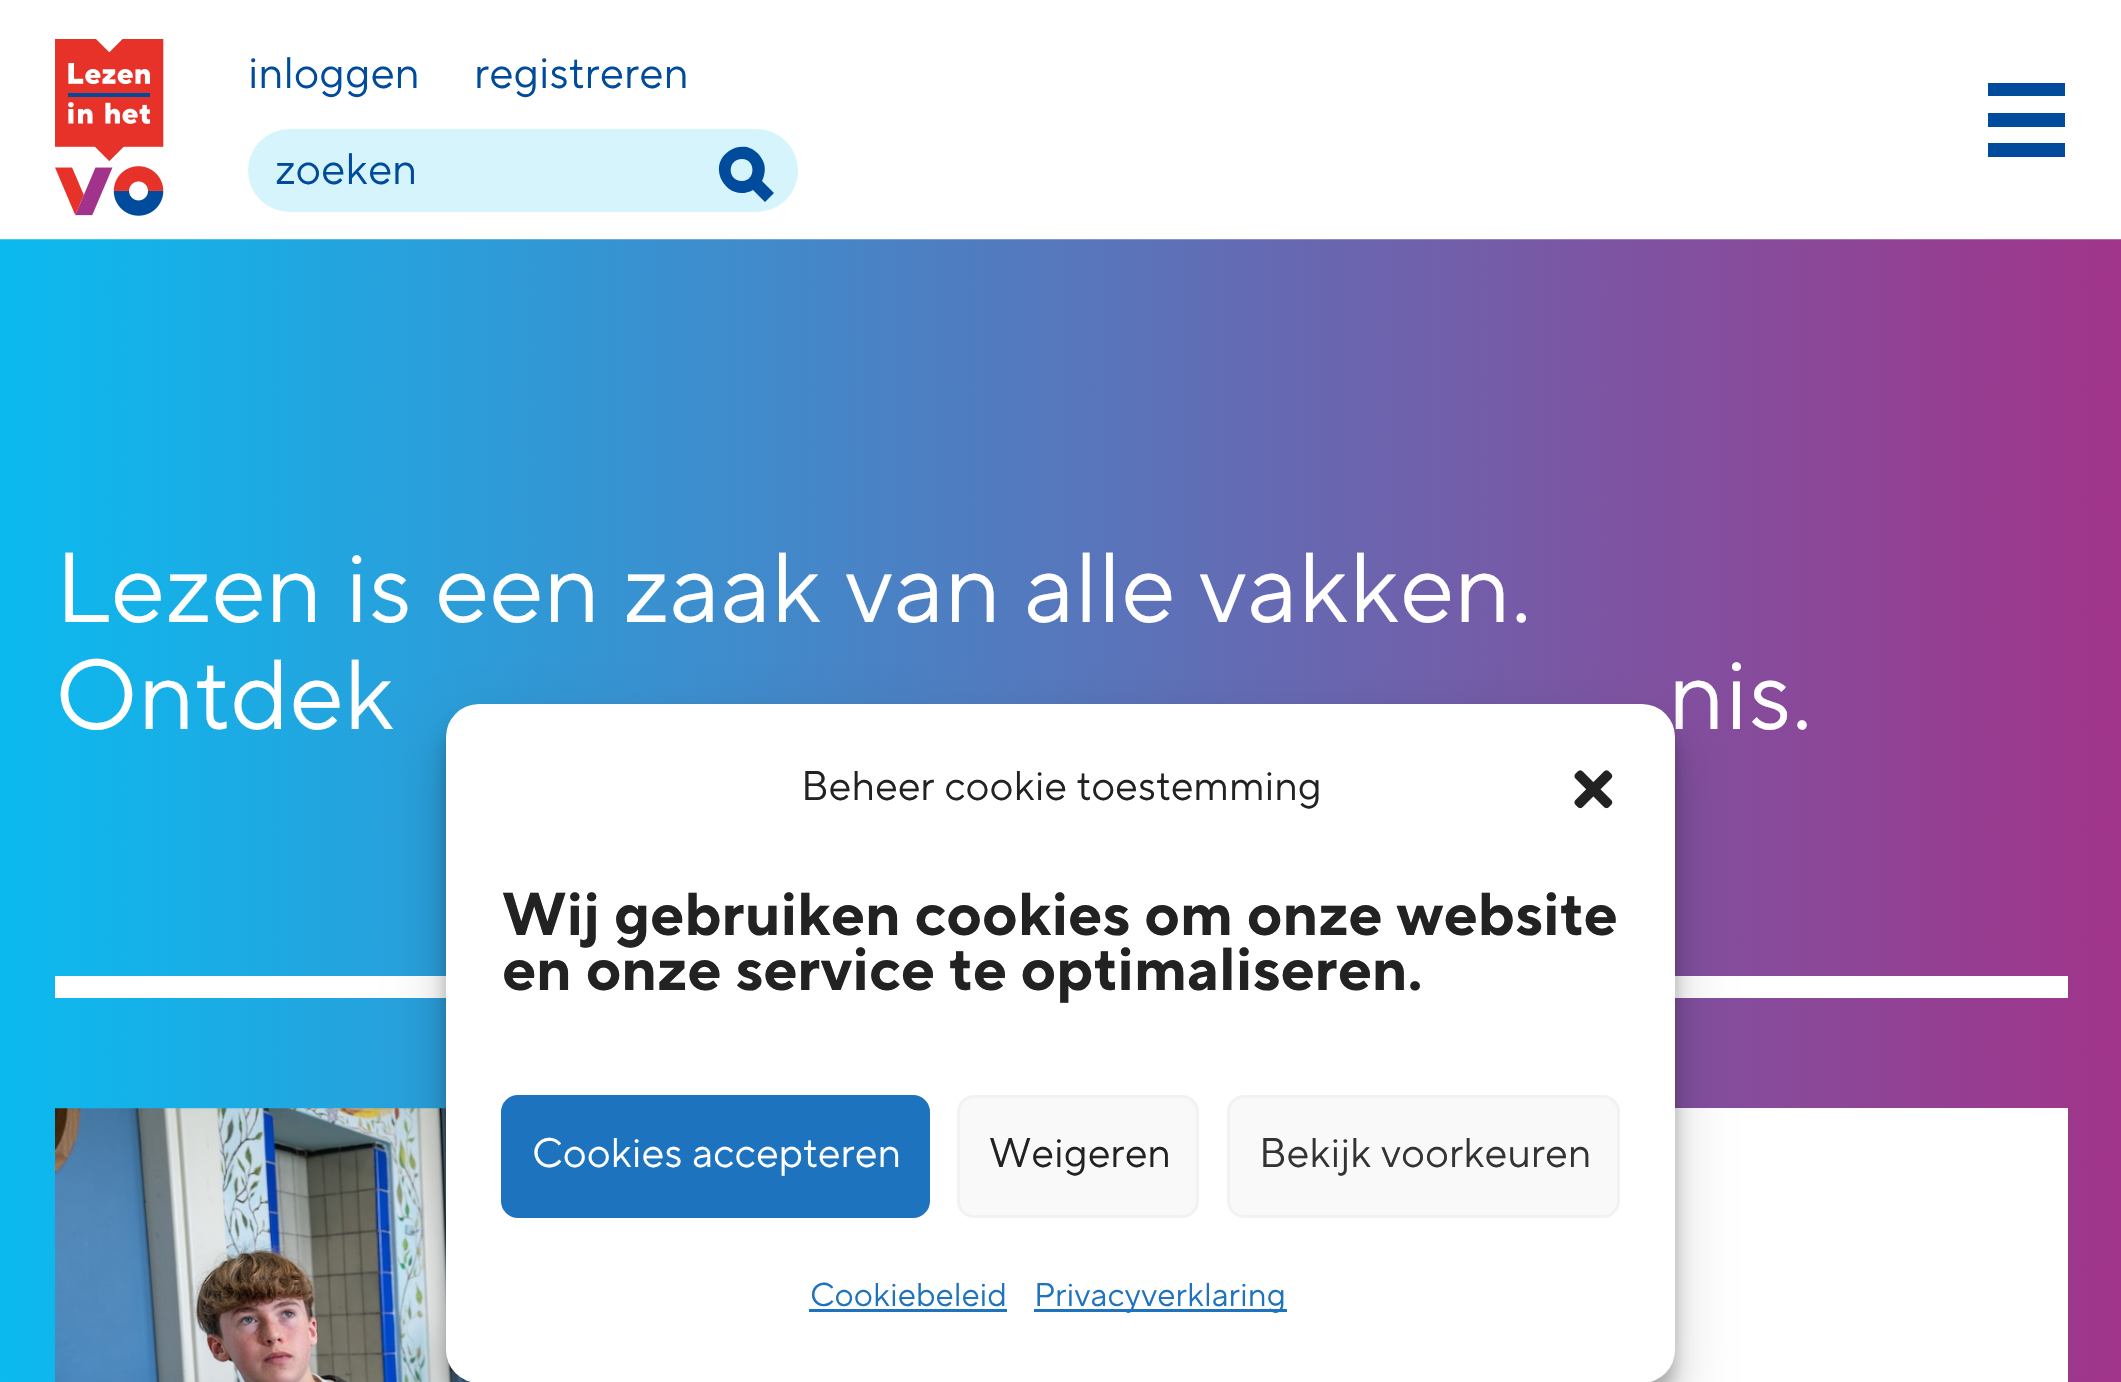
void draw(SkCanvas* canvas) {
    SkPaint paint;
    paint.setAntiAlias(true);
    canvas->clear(0xFFFFFFFF);
    canvas->drawImageRect(SkImages::DeferredFromEncodedData(SkData::MakeFromFileName("img1.png")), SkRect::MakeXYWH(55, 39, 109, 177), SkSamplingOptions());
    SkFont font1(fontMgr->matchFamilyStyle("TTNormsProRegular", SkFontStyle::Normal()), 44);
    font1.setSubpixel(true);
    paint.setColor(0xFF004B9C);
    canvas->drawString("inloggen", 248, 88, font1, paint);
    canvas->drawString("registreren", 474, 88, font1, paint);
    canvas->drawRect(SkRect::MakeXYWH(1988, 113, 77, 14), paint);
    canvas->drawRect(SkRect::MakeXYWH(1988, 83, 77, 13), paint);
    canvas->drawRect(SkRect::MakeXYWH(1988, 143, 77, 14), paint);
    paint.setColor(0xFFD6F4FC);
    canvas->drawRoundRect(SkRect::MakeXYWH(248, 129, 550, 83), 41.5f, 41.5f, paint);
    paint.setColor(0xFF004B9C);
    canvas->drawString("zoeken", 275, 184, font1, paint);
    canvas->drawPath(SkPathBuilder().moveTo(774, 193).lineTo(762, 181).cubicTo(765, 175, 766, 167, 763, 161).cubicTo(760, 154, 754, 149, 747, 147).cubicTo(741, 146, 734, 147, 729, 151).cubicTo(705, 167, 728, 204, 753, 190).lineTo(765, 202).close().moveTo(742, 181).cubicTo(727, 181, 727, 159, 742, 159).cubicTo(756, 159, 756, 181, 742, 181).close().detach(), paint);
    canvas->drawImageRect(SkImages::DeferredFromEncodedData(SkData::MakeFromFileName("img2.png")), SkRect::MakeXYWH(0, 239, 2121, 1143), SkSamplingOptions());
    paint.setColor(0xFFFFFFFF);
    canvas->drawRect(SkRect::MakeXYWH(55, 976, 2013, 22), paint);
    SkFont font2(fontMgr->matchFamilyStyle("TTNormsProRegular", SkFontStyle::Normal()), 99);
    font2.setSubpixel(true);
    canvas->drawString("Lezen is een zaak van alle vakken.", 55, 622, font2, paint);
    canvas->drawString("Ontdek", 55, 729, font2, paint);
    canvas->drawString("nis.", 1668, 729, font2, paint);
    canvas->drawImageRect(SkImages::DeferredFromEncodedData(SkData::MakeFromFileName("img3.png")), SkRect::MakeXYWH(55, 1108, 416, 274), SkSamplingOptions());
    canvas->drawRect(SkRect::MakeXYWH(1650, 1108, 418, 274), paint);
    paint.setColor(0x3B000000);
    paint.setMaskFilter(SkMaskFilter::MakeBlur(kNormal_SkBlurStyle, 8));
    canvas->drawRoundRect(SkRect::MakeXYWH(446, 721, 1229, 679), 33, 33, paint);
    paint.setMaskFilter(nullptr);
    paint.setColor(0x30000000);
    paint.setMaskFilter(SkMaskFilter::MakeBlur(kNormal_SkBlurStyle, 27.5f));
    canvas->drawRoundRect(SkRect::MakeXYWH(446, 732, 1229, 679), 33, 33, paint);
    paint.setMaskFilter(nullptr);
    paint.setColor(0xFFFFFFFF);
    canvas->drawRoundRect(SkRect::MakeXYWH(446, 704, 1229, 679), 33, 33, paint);
    SkFont font3(fontMgr->matchFamilyStyle("TTNormsProRegular", SkFontStyle::Normal()), 41.25f);
    font3.setSubpixel(true);
    paint.setColor(0xFF222222);
    canvas->drawString("Beheer cookie toestemming", 801, 800, font3, paint);
    canvas->drawImageRect(SkImages::DeferredFromEncodedData(SkData::MakeFromFileName("img4.png")), SkRect::MakeXYWH(1574, 770, 39, 39), SkSamplingOptions());
    SkFont font4(fontMgr->matchFamilyStyle("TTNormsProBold", SkFontStyle::Bold()), 60.5f);
    font4.setSubpixel(true);
    canvas->drawString("Wij gebruiken cookies om onze website", 502, 935, font4, paint);
    canvas->drawString("en onze service te optimaliseren.", 502, 990, font4, paint);
    paint.setColor(0xFF1E73BE);
    canvas->drawRoundRect(SkRect::MakeXYWH(502.5f, 1096.5f, 426, 120), 15.5f, 15.5f, paint);
    paint.setStyle(SkPaint::kStroke_Style);
    paint.setStrokeWidth(3);
    canvas->drawRoundRect(SkRect::MakeXYWH(502.5f, 1096.5f, 426, 120), 15.5f, 15.5f, paint);
    paint.setStyle(SkPaint::kFill_Style);
    paint.setColor(0xFFFFFFFF);
    canvas->drawString("Cookies accepteren", 532, 1167, font3, paint);
    paint.setColor(0xFFF9F9F9);
    canvas->drawRoundRect(SkRect::MakeXYWH(958.5f, 1096.5f, 239, 120), 15.5f, 15.5f, paint);
    paint.setStyle(SkPaint::kStroke_Style);
    paint.setColor(0xFFF2F2F2);
    canvas->drawRoundRect(SkRect::MakeXYWH(958.5f, 1096.5f, 239, 120), 15.5f, 15.5f, paint);
    paint.setStyle(SkPaint::kFill_Style);
    paint.setColor(0xFF222222);
    canvas->drawString("Weigeren", 989, 1167, font3, paint);
    paint.setColor(0xFFF9F9F9);
    canvas->drawRoundRect(SkRect::MakeXYWH(1228.5f, 1096.5f, 390, 120), 15.5f, 15.5f, paint);
    paint.setStyle(SkPaint::kStroke_Style);
    paint.setColor(0xFFF2F2F2);
    canvas->drawRoundRect(SkRect::MakeXYWH(1228.5f, 1096.5f, 390, 120), 15.5f, 15.5f, paint);
    paint.setStyle(SkPaint::kFill_Style);
    paint.setColor(0xFF333333);
    canvas->drawString("Bekijk voorkeuren", 1259, 1167, font3, paint);
    SkFont font5(fontMgr->matchFamilyStyle("TTNormsProRegular", SkFontStyle::Normal()), 33);
    font5.setSubpixel(true);
    paint.setColor(0xFF1E73BE);
    canvas->drawString("Cookiebeleid", 810, 1306, font5, paint);
    canvas->drawRect(SkRect::MakeXYWH(809, 1309, 198, 3), paint);
    canvas->drawRect(SkRect::MakeXYWH(1034, 1309, 253, 3), paint);
    canvas->drawString("Privacyverklaring", 1034, 1306, font5, paint);
}
